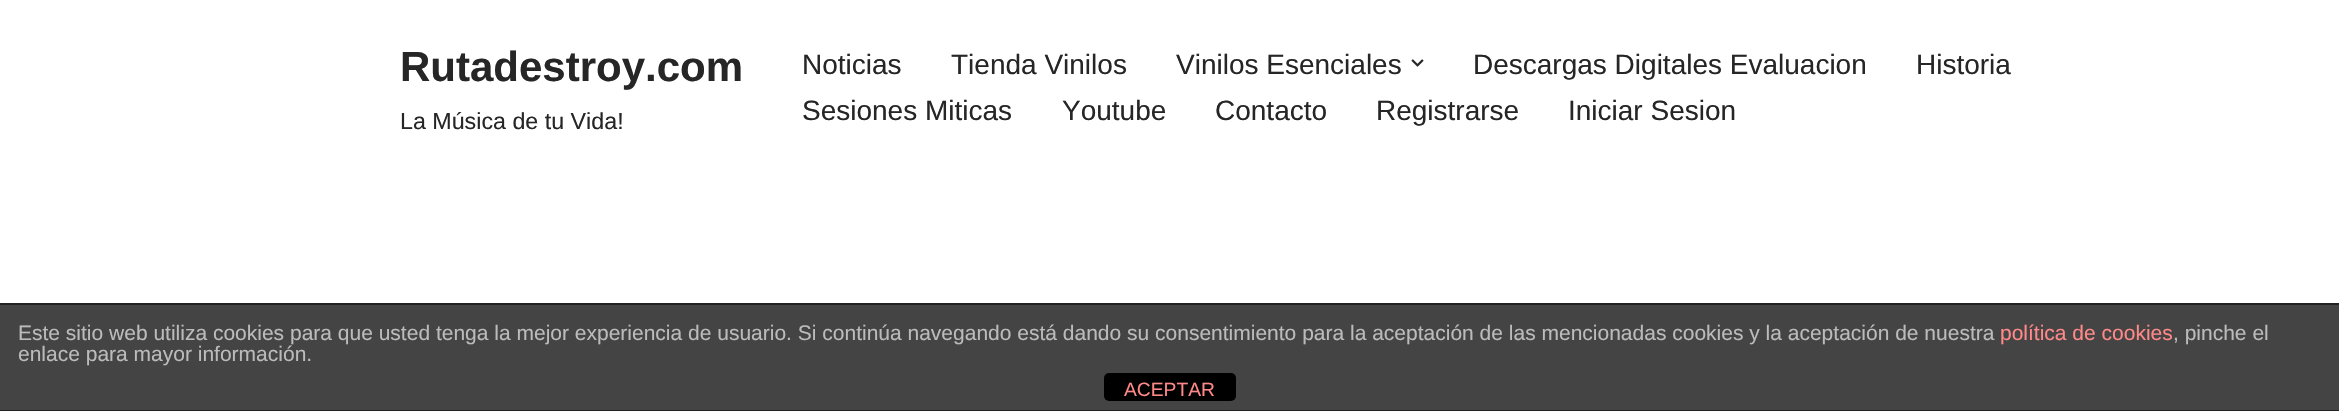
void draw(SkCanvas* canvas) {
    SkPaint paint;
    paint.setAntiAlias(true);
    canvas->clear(0xFFFFFFFF);
    SkFont font1(fontMgr->matchFamilyStyle("Liberation Sans", SkFontStyle::Bold()), 42);
    font1.setSubpixel(true);
    paint.setColor(0xFF272626);
    canvas->drawString("Rutadestroy.com", 400, 81, font1, paint);
    SkFont font2(fontMgr->matchFamilyStyle("Liberation Sans", SkFontStyle::Normal()), 23.25f);
    font2.setSubpixel(true);
    canvas->drawString("La Música de tu Vida!", 400, 129, font2, paint);
    SkFont font3(fontMgr->matchFamilyStyle("Liberation Sans", SkFontStyle::Normal()), 28);
    font3.setSubpixel(true);
    canvas->drawString("Noticias", 802, 74, font3, paint);
    canvas->drawString("Tienda Vinilos", 951, 74, font3, paint);
    canvas->drawString("Vinilos Esenciales", 1176, 74, font3, paint);
    canvas->drawImageRect(SkImages::DeferredFromEncodedData(SkData::MakeFromFileName("img1.png")), SkRect::MakeXYWH(1411, 59, 13, 8), SkSamplingOptions());
    canvas->drawString("Descargas Digitales Evaluacion", 1473, 74, font3, paint);
    canvas->drawString("Historia", 1916, 74, font3, paint);
    canvas->drawString("Sesiones Miticas", 802, 120, font3, paint);
    canvas->drawString("Youtube", 1062, 120, font3, paint);
    canvas->drawString("Contacto", 1215, 120, font3, paint);
    canvas->drawString("Registrarse", 1376, 120, font3, paint);
    canvas->drawString("Iniciar Sesion", 1568, 120, font3, paint);
    paint.setColor(0xFF444444);
    canvas->drawRect(SkRect::MakeXYWH(0, 305, 2339, 105), paint);
    paint.setColor(0xFF222222);
    canvas->drawRect(SkRect::MakeXYWH(0, 303, 2339, 2), paint);
    canvas->drawRect(SkRect::MakeXYWH(0, 410, 2339, 1), paint);
    SkFont font4(fontMgr->matchFamilyStyle("Liberation Sans", SkFontStyle::Normal()), 21);
    font4.setSubpixel(true);
    paint.setColor(0xFFBBBBBB);
    canvas->drawString("Este sitio web utiliza cookies para que usted tenga la mejor experiencia de usuario. Si continúa navegando está dando su consentimiento para la aceptación de las mencionadas cookies y la aceptación de nuestra", 18, 340, font4, paint);
    paint.setColor(0xFFFF8888);
    canvas->drawString("política de cookies", 2000, 340, font4, paint);
    paint.setColor(0xFFBBBBBB);
    canvas->drawString(", pinche el", 2173, 340, font4, paint);
    canvas->drawString("enlace para mayor información.", 18, 361, font4, paint);
    paint.setColor(0xFF000000);
    canvas->drawRoundRect(SkRect::MakeXYWH(1104, 373, 132, 28), 5, 5, paint);
    SkFont font5(fontMgr->matchFamilyStyle("Liberation Sans", SkFontStyle::Normal()), 19.25f);
    font5.setSubpixel(true);
    paint.setColor(0xFFFF8888);
    canvas->drawString("ACEPTAR", 1124, 396, font5, paint);
}
